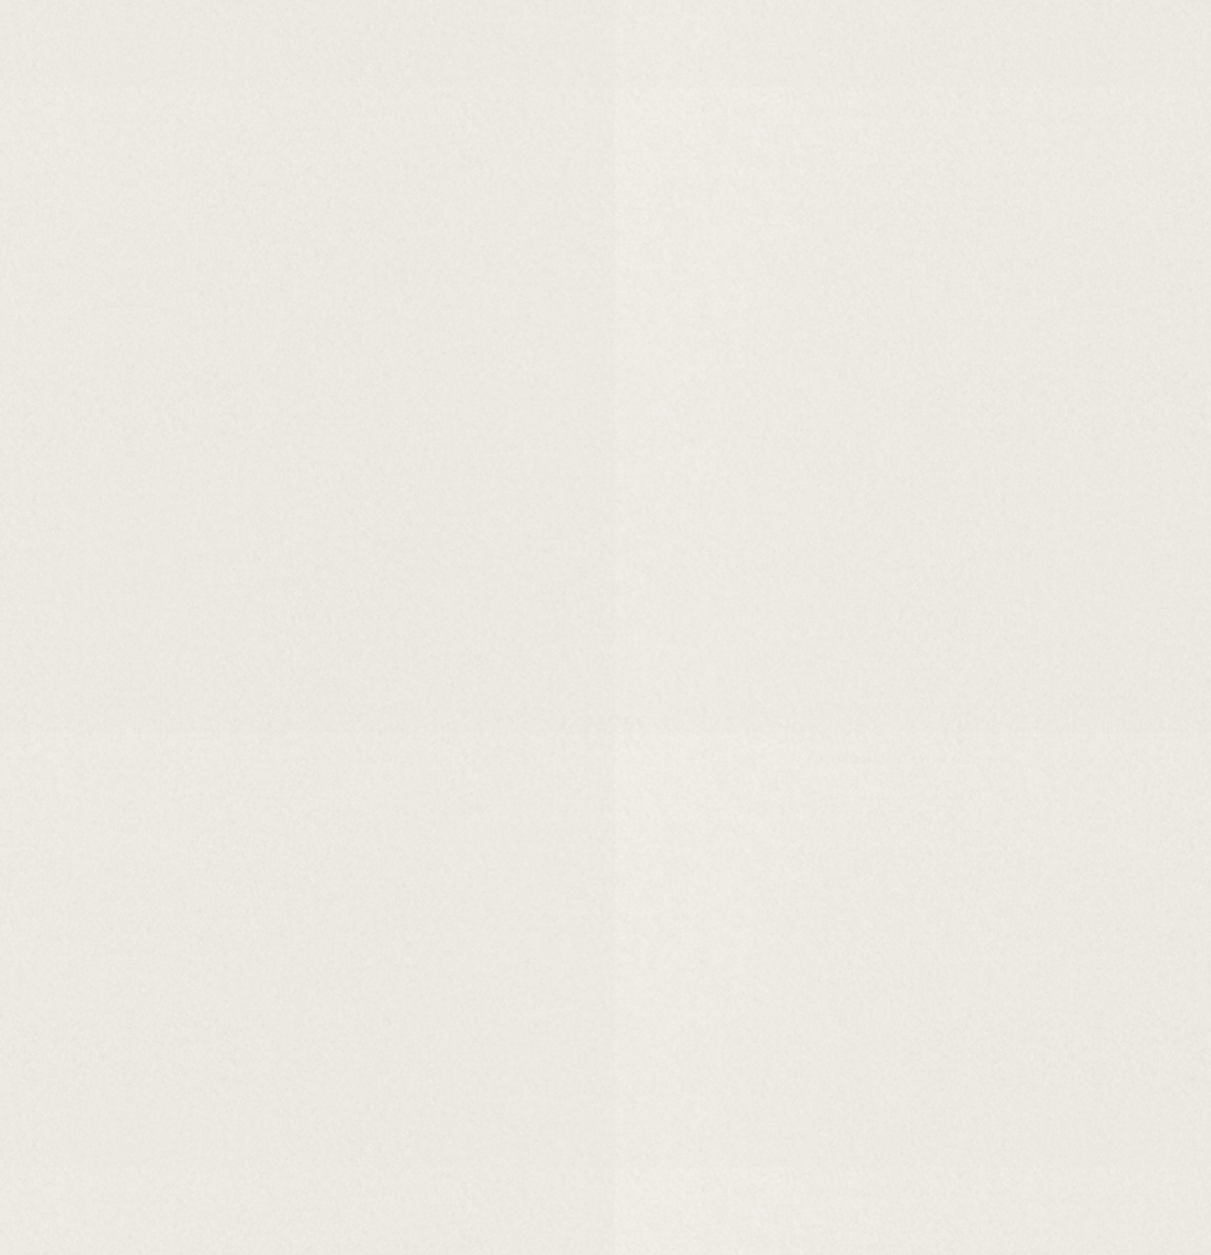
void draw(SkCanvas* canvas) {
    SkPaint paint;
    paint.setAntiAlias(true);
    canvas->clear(0xFFFFFFFF);
    canvas->drawImageRect(SkImages::DeferredFromEncodedData(SkData::MakeFromFileName("img1.png")), SkRect::MakeXYWH(0, 0, 1211, 1255), SkSamplingOptions());
}
